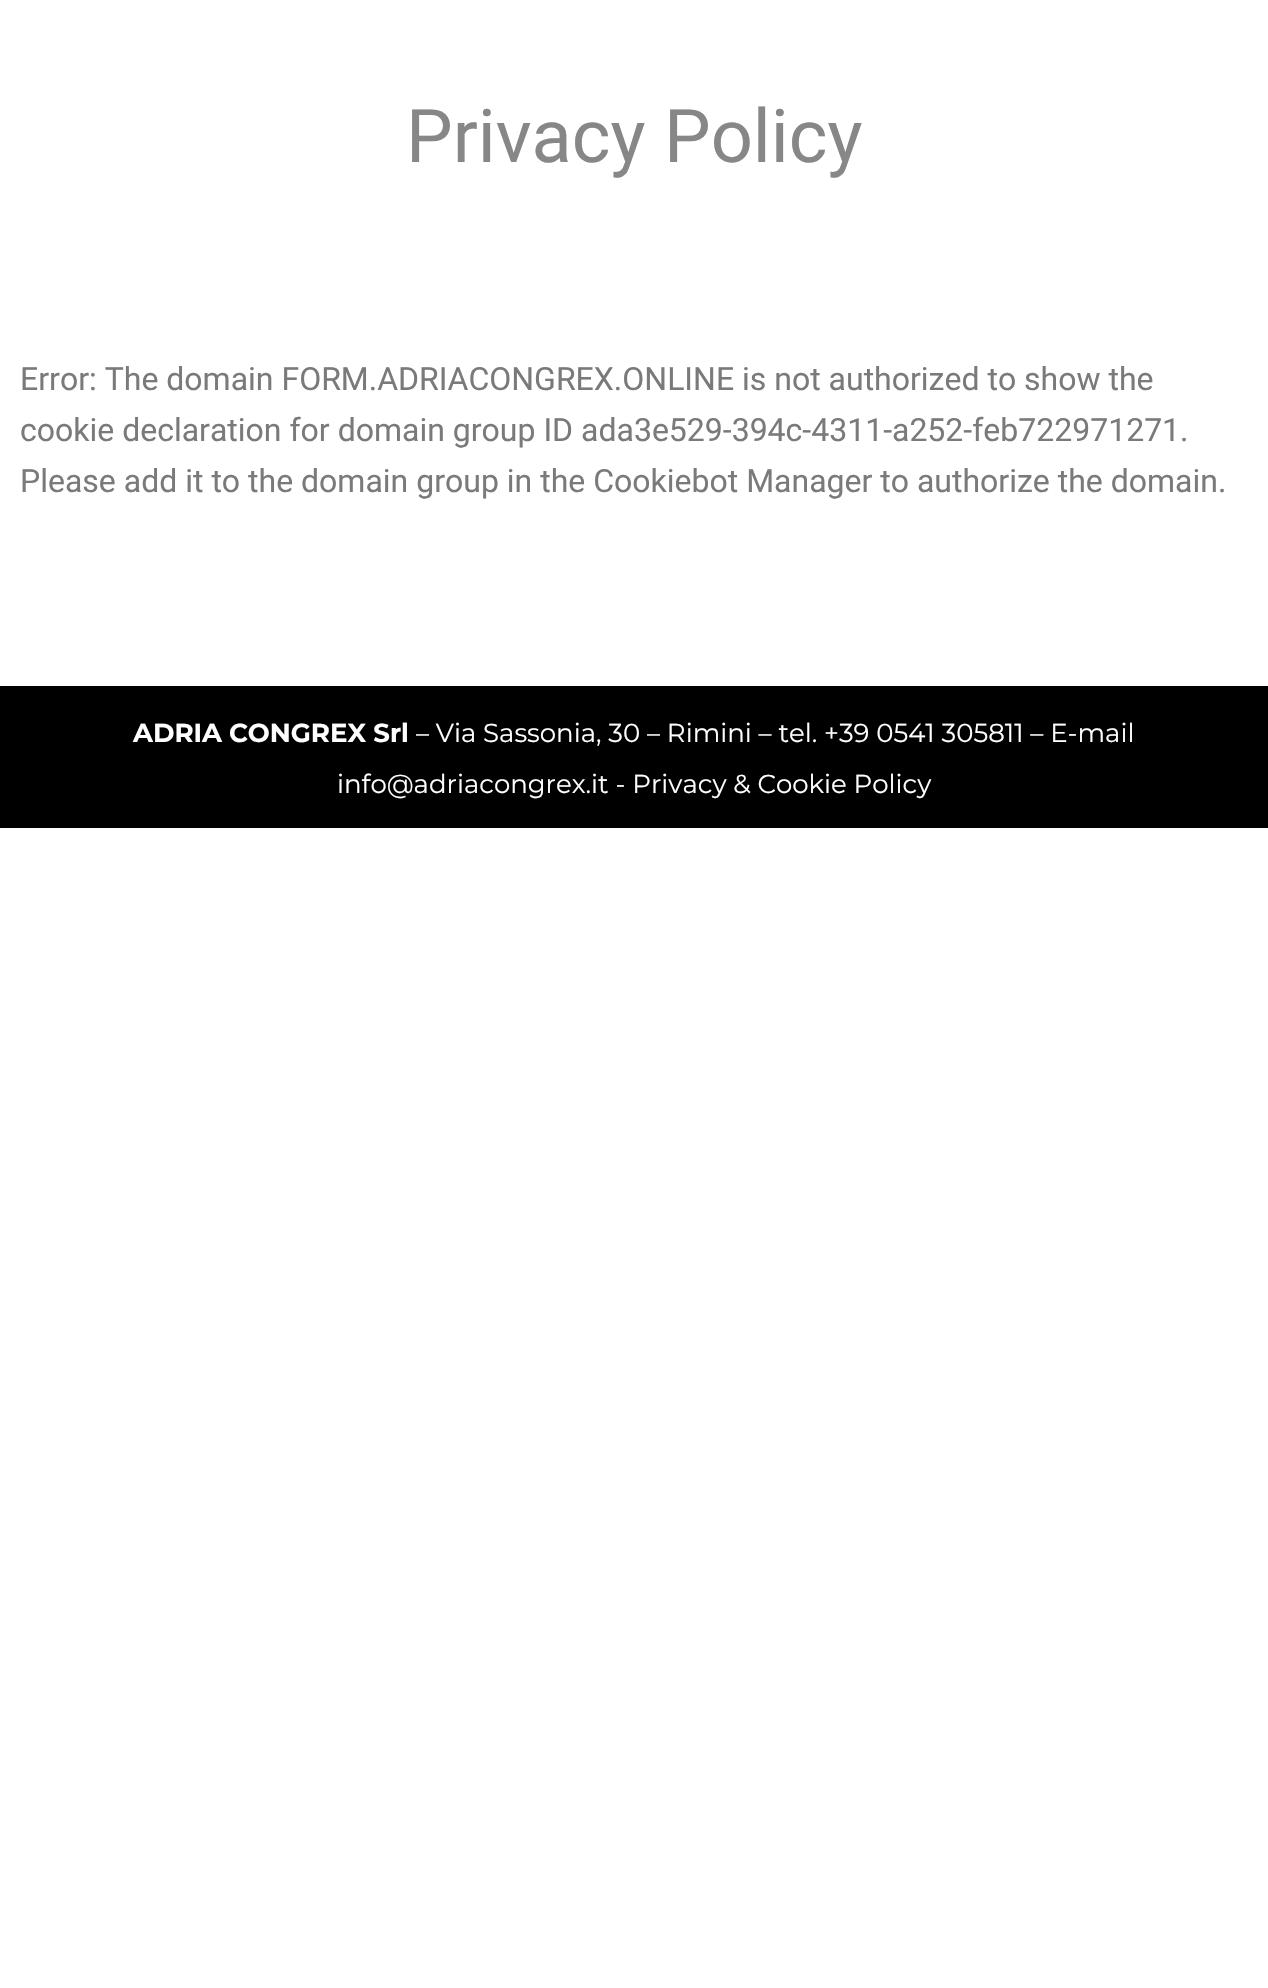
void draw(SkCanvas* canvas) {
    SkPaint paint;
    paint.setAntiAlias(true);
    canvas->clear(0xFFFFFFFF);
    SkFont font1(fontMgr->matchFamilyStyle("Roboto", SkFontStyle::Normal()), 74);
    font1.setSubpixel(true);
    paint.setColor(0xFF878787);
    canvas->drawString("Privacy Policy", 406, 162, font1, paint);
    SkFont font2(fontMgr->matchFamilyStyle("Roboto", SkFontStyle::Normal()), 32);
    font2.setSubpixel(true);
    paint.setColor(0xFF7A7A7A);
    canvas->drawString("Error: The domain FORM.ADRIACONGREX.ONLINE is not authorized to show the", 20, 390, font2, paint);
    canvas->drawString("cookie declaration for domain group ID ada3e529-394c-4311-a252-feb722971271.", 20, 441, font2, paint);
    canvas->drawString("Please add it to the domain group in the Cookiebot Manager to authorize the domain.", 20, 492, font2, paint);
    paint.setColor(0xFF000000);
    canvas->drawRect(SkRect::MakeXYWH(0, 686, 1268, 142), paint);
    SkFont font3(fontMgr->matchFamilyStyle("Montserrat", SkFontStyle::Bold()), 26);
    font3.setSubpixel(true);
    paint.setColor(0xFFFFFFFF);
    canvas->drawString("ADRIA", 133, 742, font3, paint);
    canvas->drawString("CONGREX Srl", 229, 742, font3, paint);
    SkFont font4(fontMgr->matchFamilyStyle("Montserrat", SkFontStyle::Normal()), 26);
    font4.setSubpixel(true);
    canvas->drawString("– Via Sassonia, 30 – Rimini – tel. +39 0541 305811 – E-mail", 416, 742, font4, paint);
    canvas->drawString("info@adriacongrex.it - Privacy & Cookie Policy", 337, 793, font4, paint);
}
